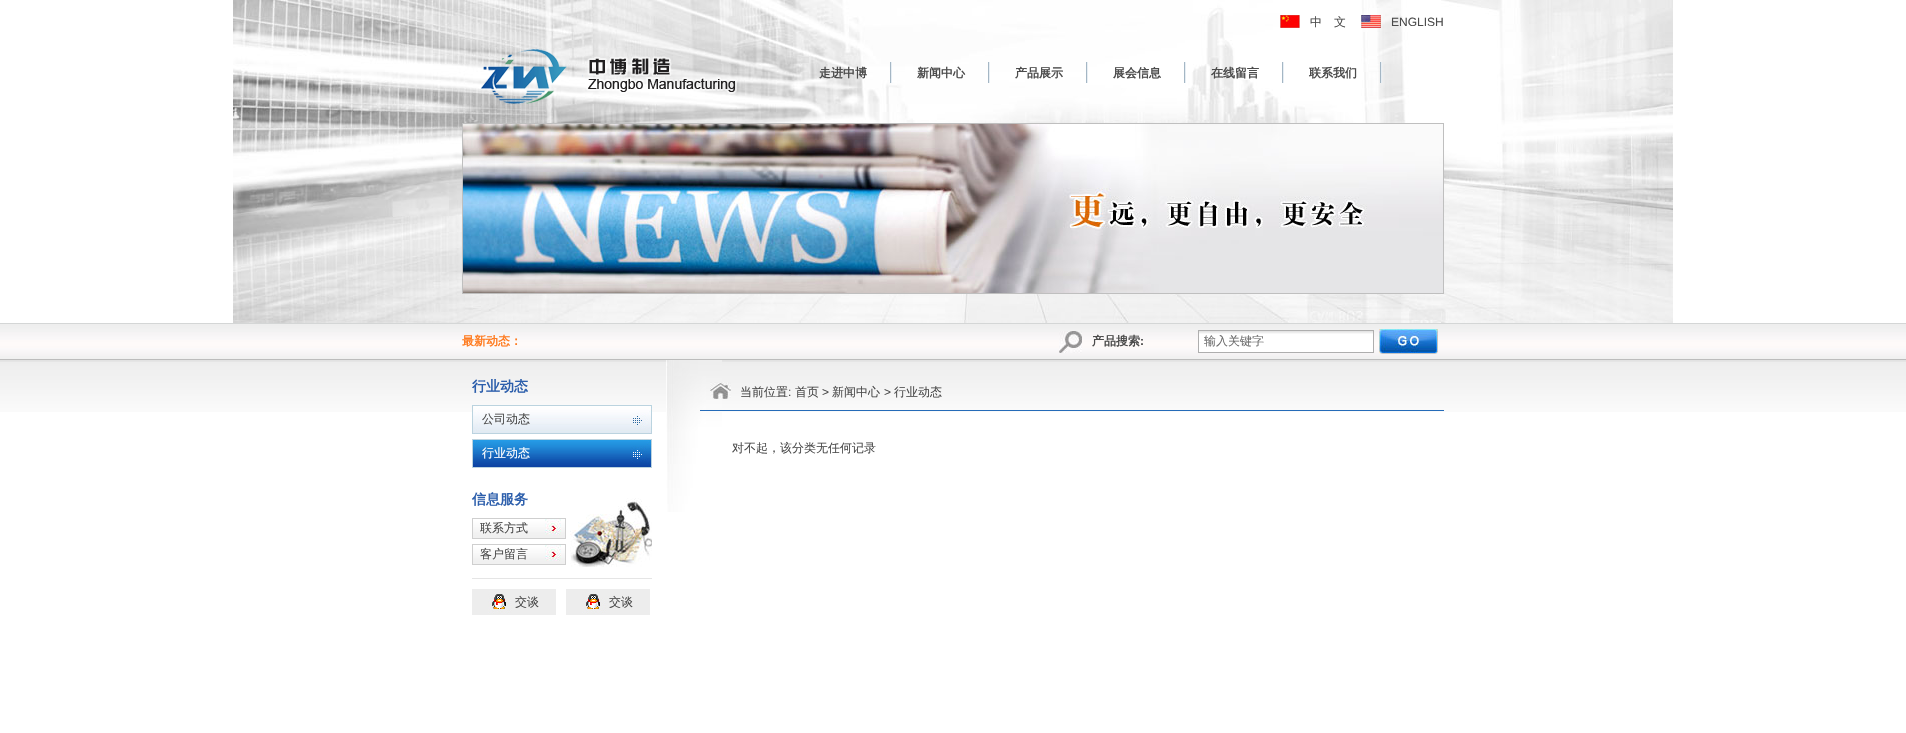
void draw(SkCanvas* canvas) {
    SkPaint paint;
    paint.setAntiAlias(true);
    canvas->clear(0xFFFFFFFF);
    canvas->drawImageRect(SkImages::DeferredFromEncodedData(SkData::MakeFromFileName("img1.png")), SkRect::MakeXYWH(233, 0, 1440, 323), SkSamplingOptions());
    canvas->drawImageRect(SkImages::DeferredFromEncodedData(SkData::MakeFromFileName("img2.png")), SkRect::MakeXYWH(1280, 15, 20, 13), SkSamplingOptions());
    SkFont font1(fontMgr->matchFamilyStyle("WenQuanYi Zen Hei", SkFontStyle(500, SkFontStyle::kNormal_Width, SkFontStyle::kUpright_Slant)), 12);
    font1.setSubpixel(true);
    paint.setColor(0xFF4B4B4B);
    canvas->drawString("中　文", 1310, 26, font1, paint);
    canvas->drawImageRect(SkImages::DeferredFromEncodedData(SkData::MakeFromFileName("img3.png")), SkRect::MakeXYWH(1361, 15, 20, 13), SkSamplingOptions());
    SkFont font2(fontMgr->matchFamilyStyle("Liberation Sans", SkFontStyle::Normal()), 12);
    font2.setSubpixel(true);
    canvas->drawString("ENGLISH", 1391, 26, font2, paint);
    canvas->drawImageRect(SkImages::DeferredFromEncodedData(SkData::MakeFromFileName("img4.png")), SkRect::MakeXYWH(481, 49, 256, 55), SkSamplingOptions());
    canvas->drawImageRect(SkImages::DeferredFromEncodedData(SkData::MakeFromFileName("img5.png")), SkRect::MakeXYWH(890, 62, 2, 21), SkSamplingOptions());
    SkFont font3(fontMgr->matchFamilyStyle("WenQuanYi Zen Hei", SkFontStyle::Bold()), 12);
    font3.setSubpixel(true);
    canvas->drawString("走进中博", 819, 77, font3, paint);
    canvas->drawImageRect(SkImages::DeferredFromEncodedData(SkData::MakeFromFileName("img5.png")), SkRect::MakeXYWH(988, 62, 2, 21), SkSamplingOptions());
    canvas->drawString("新闻中心", 917, 77, font3, paint);
    canvas->drawImageRect(SkImages::DeferredFromEncodedData(SkData::MakeFromFileName("img5.png")), SkRect::MakeXYWH(1086, 62, 2, 21), SkSamplingOptions());
    canvas->drawString("产品展示", 1015, 77, font3, paint);
    canvas->drawImageRect(SkImages::DeferredFromEncodedData(SkData::MakeFromFileName("img5.png")), SkRect::MakeXYWH(1184, 62, 2, 21), SkSamplingOptions());
    canvas->drawString("展会信息", 1113, 77, font3, paint);
    canvas->drawImageRect(SkImages::DeferredFromEncodedData(SkData::MakeFromFileName("img5.png")), SkRect::MakeXYWH(1282, 62, 2, 21), SkSamplingOptions());
    canvas->drawString("在线留言", 1211, 77, font3, paint);
    canvas->drawImageRect(SkImages::DeferredFromEncodedData(SkData::MakeFromFileName("img5.png")), SkRect::MakeXYWH(1380, 62, 2, 21), SkSamplingOptions());
    canvas->drawString("联系我们", 1309, 77, font3, paint);
    paint.setStyle(SkPaint::kStroke_Style);
    paint.setStrokeWidth(1);
    paint.setColor(0xFFBFBFBF);
    canvas->drawRect(SkRect::MakeXYWH(462.5f, 123.5f, 981, 170), paint);
    canvas->drawImageRect(SkImages::DeferredFromEncodedData(SkData::MakeFromFileName("img6.png")), SkRect::MakeXYWH(463, 124, 980, 169), SkSamplingOptions());
    canvas->drawImageRect(SkImages::DeferredFromEncodedData(SkData::MakeFromFileName("img7.png")), SkRect::MakeXYWH(0, 324, 1906, 88), SkSamplingOptions());
    paint.setStyle(SkPaint::kFill_Style);
    paint.setColor(0xFFD4D6D6);
    canvas->drawRect(SkRect::MakeXYWH(0, 323, 1906, 1), paint);
    paint.setColor(0xFFFF7C21);
    canvas->drawString("最新动态：", 462, 345, font3, paint);
    canvas->drawImageRect(SkImages::DeferredFromEncodedData(SkData::MakeFromFileName("img8.png")), SkRect::MakeXYWH(1059, 331, 23, 22), SkSamplingOptions());
    paint.setColor(0xFF4B4B4B);
    canvas->drawString("产品搜索", 1092, 345, font3, paint);
    SkFont font4(fontMgr->matchFamilyStyle("Liberation Sans", SkFontStyle::Bold()), 12);
    font4.setSubpixel(true);
    canvas->drawString(":", 1140, 345, font4, paint);
    canvas->drawImageRect(SkImages::DeferredFromEncodedData(SkData::MakeFromFileName("img9.png")), SkRect::MakeXYWH(1199, 331, 174, 21), SkSamplingOptions());
    paint.setStyle(SkPaint::kStroke_Style);
    paint.setColor(0xFFAEAEAE);
    canvas->drawRect(SkRect::MakeXYWH(1198.5f, 330.5f, 175, 22), paint);
    paint.setStyle(SkPaint::kFill_Style);
    paint.setColor(0xFF6D6D6D);
    canvas->drawString("输入关键字", 1204, 345, font1, paint);
    canvas->drawImageRect(SkImages::DeferredFromEncodedData(SkData::MakeFromFileName("img10.png")), SkRect::MakeXYWH(1379, 329, 59, 25), SkSamplingOptions());
    SkFont font5(fontMgr->matchFamilyStyle("WenQuanYi Zen Hei", SkFontStyle::Bold()), 14);
    font5.setSubpixel(true);
    paint.setColor(0xFF2D5FAC);
    canvas->drawString("行业动态", 472, 391, font5, paint);
    canvas->drawImageRect(SkImages::DeferredFromEncodedData(SkData::MakeFromFileName("img11.png")), SkRect::MakeXYWH(472, 405, 180, 29), SkSamplingOptions());
    paint.setColor(0xFF4B4B4B);
    canvas->drawString("公司动态", 482, 423, font1, paint);
    canvas->drawImageRect(SkImages::DeferredFromEncodedData(SkData::MakeFromFileName("img12.png")), SkRect::MakeXYWH(472, 439, 180, 29), SkSamplingOptions());
    paint.setColor(0xFFFFFFFF);
    canvas->drawString("行业动态", 482, 457, font1, paint);
    canvas->drawImageRect(SkImages::DeferredFromEncodedData(SkData::MakeFromFileName("img13.png")), SkRect::MakeXYWH(570, 498, 82, 69), SkSamplingOptions());
    paint.setColor(0xFFE5E5E5);
    canvas->drawRect(SkRect::MakeXYWH(472, 578, 180, 1), paint);
    paint.setColor(0xFF2D5FAC);
    canvas->drawString("信息服务", 472, 504, font5, paint);
    canvas->drawImageRect(SkImages::DeferredFromEncodedData(SkData::MakeFromFileName("img14.png")), SkRect::MakeXYWH(473, 519, 92, 19), SkSamplingOptions());
    paint.setStyle(SkPaint::kStroke_Style);
    paint.setColor(0xFFCFCFCF);
    canvas->drawRect(SkRect::MakeXYWH(472.5f, 518.5f, 93, 20), paint);
    paint.setStyle(SkPaint::kFill_Style);
    paint.setColor(0xFF4B4B4B);
    canvas->drawString("联系方式", 480, 532, font1, paint);
    canvas->drawImageRect(SkImages::DeferredFromEncodedData(SkData::MakeFromFileName("img14.png")), SkRect::MakeXYWH(473, 545, 92, 19), SkSamplingOptions());
    paint.setStyle(SkPaint::kStroke_Style);
    paint.setColor(0xFFCFCFCF);
    canvas->drawRect(SkRect::MakeXYWH(472.5f, 544.5f, 93, 20), paint);
    paint.setStyle(SkPaint::kFill_Style);
    paint.setColor(0xFF4B4B4B);
    canvas->drawString("客户留言", 480, 558, font1, paint);
    canvas->drawImageRect(SkImages::DeferredFromEncodedData(SkData::MakeFromFileName("img15.png")), SkRect::MakeXYWH(472, 589, 84, 26), SkSamplingOptions());
    canvas->drawString("交谈", 515, 606, font1, paint);
    canvas->drawImageRect(SkImages::DeferredFromEncodedData(SkData::MakeFromFileName("img15.png")), SkRect::MakeXYWH(566, 589, 84, 26), SkSamplingOptions());
    canvas->drawString("交谈", 609, 606, font1, paint);
    canvas->drawImageRect(SkImages::DeferredFromEncodedData(SkData::MakeFromFileName("img16.png")), SkRect::MakeXYWH(666, 360, 56, 152), SkSamplingOptions());
    canvas->drawImageRect(SkImages::DeferredFromEncodedData(SkData::MakeFromFileName("img17.png")), SkRect::MakeXYWH(710, 382, 21, 17), SkSamplingOptions());
    paint.setColor(0xFF256BB8);
    canvas->drawRect(SkRect::MakeXYWH(700, 410, 744, 1), paint);
    paint.setColor(0xFF4B4B4B);
    canvas->drawString("当前位置", 740, 396, font1, paint);
    canvas->drawString(":", 788, 396, font2, paint);
    canvas->drawString("首页", 795, 396, font1, paint);
    canvas->drawString(">", 822, 396, font2, paint);
    canvas->drawString("新闻中心", 832, 396, font1, paint);
    canvas->drawString(">", 884, 396, font2, paint);
    canvas->drawString("行业动态", 894, 396, font1, paint);
    canvas->drawString("对不起，该分类无任何记录", 732, 452, font1, paint);
}
